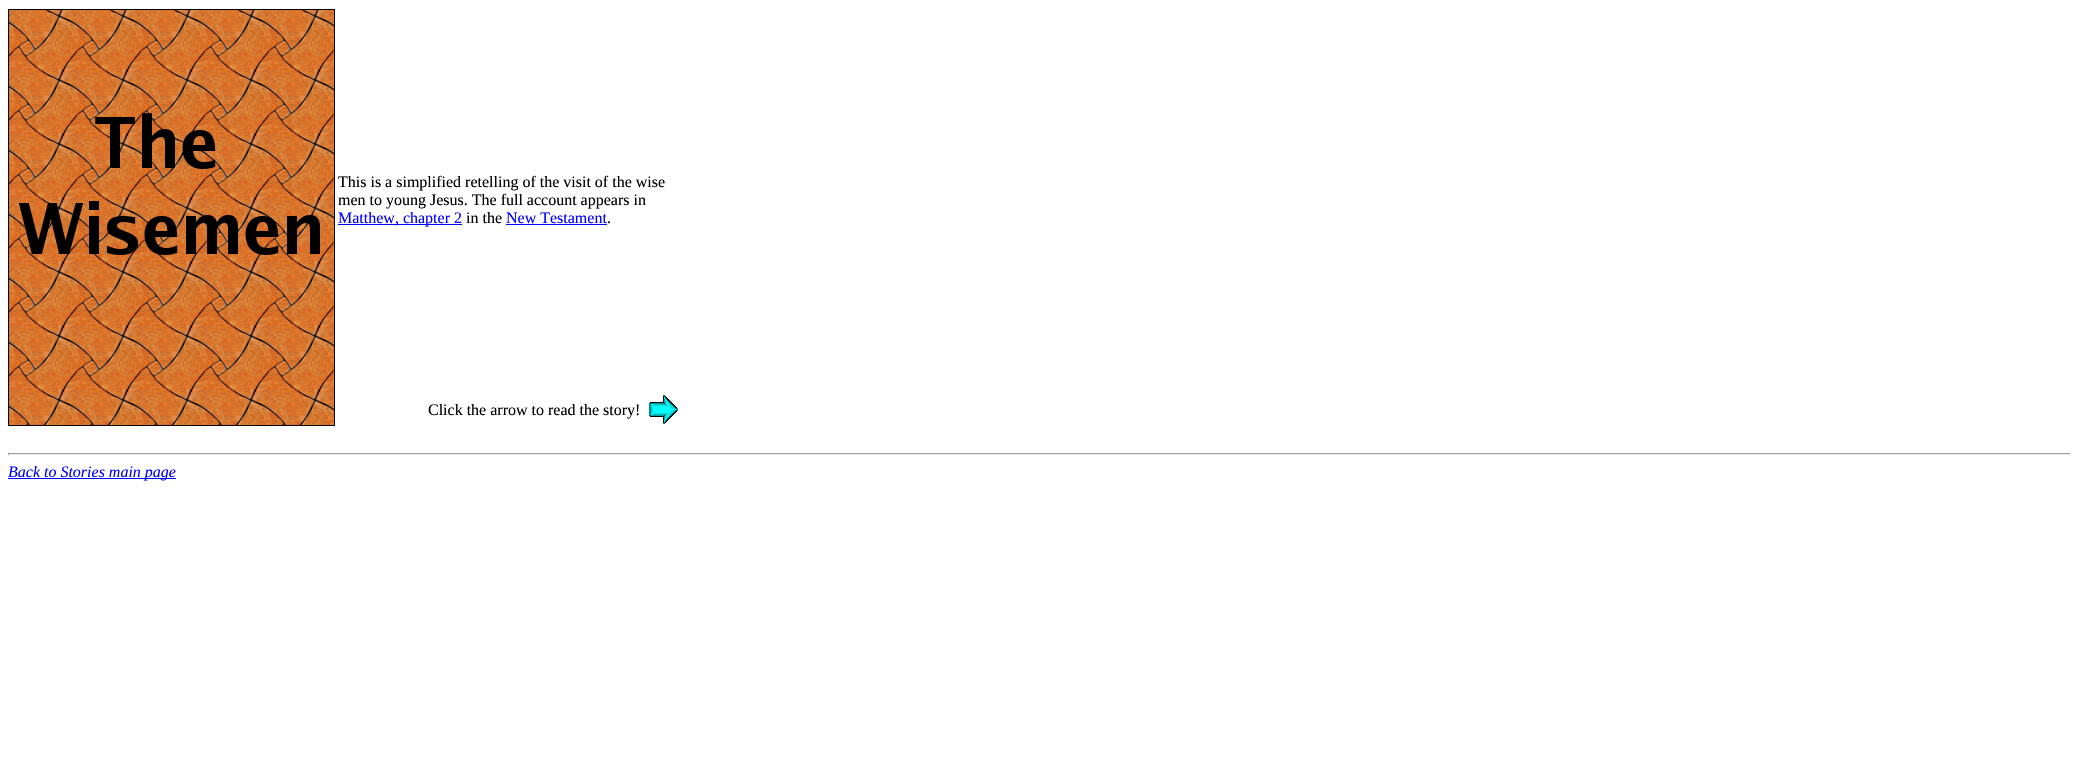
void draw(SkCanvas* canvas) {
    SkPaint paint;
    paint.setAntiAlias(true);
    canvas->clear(0xFFFFFFFF);
    paint.setStyle(SkPaint::kStroke_Style);
    paint.setStrokeWidth(1);
    paint.setColor(0xFF000000);
    canvas->drawRect(SkRect::MakeXYWH(8.5f, 9.5f, 326, 416), paint);
    canvas->drawImageRect(SkImages::DeferredFromEncodedData(SkData::MakeFromFileName("img1.png")), SkRect::MakeXYWH(9, 10, 325, 415), SkSamplingOptions());
    SkFont font1(fontMgr->matchFamilyStyle("Liberation Serif", SkFontStyle::Normal()), 16);
    font1.setSubpixel(true);
    paint.setStyle(SkPaint::kFill_Style);
    canvas->drawString("This is a simplified retelling of the visit of the wise", 338, 187, font1, paint);
    canvas->drawString("men to young Jesus. The full account appears in", 338, 205, font1, paint);
    paint.setColor(0xFF0000FF);
    canvas->drawRect(SkRect::MakeXYWH(338, 224, 124, 1), paint);
    canvas->drawString("Matthew, chapter 2", 338, 223, font1, paint);
    paint.setColor(0xFF000000);
    canvas->drawString("in the", 466, 223, font1, paint);
    paint.setColor(0xFF0000FF);
    canvas->drawString("New Testament", 506, 223, font1, paint);
    paint.setColor(0xFF000000);
    canvas->drawString(".", 607, 223, font1, paint);
    paint.setColor(0xFF0000FF);
    canvas->drawRect(SkRect::MakeXYWH(506, 224, 101, 1), paint);
    paint.setColor(0xFF000000);
    canvas->drawString("Click the arrow to read the story!", 428, 415, font1, paint);
    canvas->drawImageRect(SkImages::DeferredFromEncodedData(SkData::MakeFromFileName("img2.png")), SkRect::MakeXYWH(649, 395, 29, 29), SkSamplingOptions());
    paint.setColor(0xFF9F9F9F);
    canvas->drawRect(SkRect::MakeXYWH(8, 453, 2063, 1), paint);
    paint.setColor(0xFFEEEEEE);
    canvas->drawRect(SkRect::MakeXYWH(2070, 453, 1, 2), paint);
    canvas->drawRect(SkRect::MakeXYWH(8, 454, 2063, 1), paint);
    paint.setColor(0xFF9F9F9F);
    canvas->drawRect(SkRect::MakeXYWH(8, 453, 1, 2), paint);
    paint.setColor(0xFF0000FF);
    canvas->drawRect(SkRect::MakeXYWH(8, 478, 168, 1), paint);
    SkFont font2(fontMgr->matchFamilyStyle("Liberation Serif", SkFontStyle::Italic()), 16);
    font2.setSubpixel(true);
    canvas->drawString("Back to Stories main page", 8, 477, font2, paint);
}
